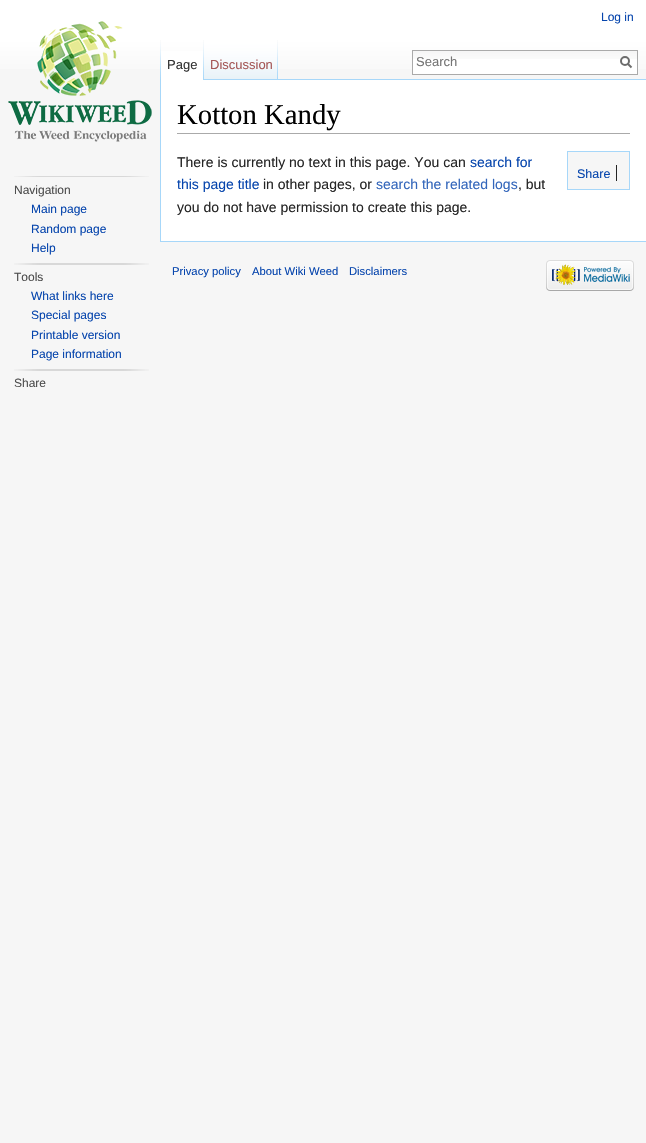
void draw(SkCanvas* canvas) {
    SkPaint paint;
    paint.setAntiAlias(true);
    canvas->clear(0xFFF6F6F6);
    {
        const SkColor colors[] = {0xFFFFFFFF, 0xFFF6F6F6};
        const float stops[] = {0.5f, 1};
        const SkPoint ends[] = {{323, 0}, {323, 80}};
        paint.setShader(SkGradientShader::MakeLinear(ends, colors, stops, 2, SkTileMode::kClamp));
        paint.setAlpha(255);
    }
    canvas->drawRect(SkRect::MakeXYWH(0, 0, 646, 69), paint);
    SkFont font1(fontMgr->matchFamilyStyle("Liberation Sans", SkFontStyle::Normal()), 12);
    font1.setSubpixel(true);
    paint.setShader(nullptr);
    paint.setColor(0xFF0645AD);
    canvas->drawString("Log in", 601, 21, font1, paint);
    canvas->drawImageRect(SkImages::DeferredFromEncodedData(SkData::MakeFromFileName("img1.png")), SkRect::MakeXYWH(160, 40, 1, 39), SkSamplingOptions());
    paint.setColor(0xFFFFFFFF);
    canvas->drawRect(SkRect::MakeXYWH(161, 51, 42, 29), paint);
    canvas->drawImageRect(SkImages::DeferredFromEncodedData(SkData::MakeFromFileName("img2.png")), SkRect::MakeXYWH(203, 40, 1, 40), SkSamplingOptions());
    SkFont font2(fontMgr->matchFamilyStyle("Liberation Sans", SkFontStyle::Normal()), 13);
    font2.setSubpixel(true);
    paint.setColor(0xFF333333);
    canvas->drawString("Page", 167, 69, font2, paint);
    canvas->drawImageRect(SkImages::DeferredFromEncodedData(SkData::MakeFromFileName("img3.png")), SkRect::MakeXYWH(204, 40, 74, 40), SkSamplingOptions());
    canvas->drawImageRect(SkImages::DeferredFromEncodedData(SkData::MakeFromFileName("img4.png")), SkRect::MakeXYWH(277, 40, 1, 39), SkSamplingOptions());
    paint.setColor(0xFFA55858);
    canvas->drawString("Discussion", 210, 69, font2, paint);
    paint.setColor(0xFFFFFFFF);
    canvas->drawRect(SkRect::MakeXYWH(413, 59, 224, 15), paint);
    canvas->drawImageRect(SkImages::DeferredFromEncodedData(SkData::MakeFromFileName("img5.png")), SkRect::MakeXYWH(413, 51, 224, 8), SkSamplingOptions());
    paint.setStyle(SkPaint::kStroke_Style);
    paint.setStrokeWidth(1);
    paint.setColor(0xFFAAAAAA);
    canvas->drawRect(SkRect::MakeXYWH(412.5f, 50.5f, 225, 24), paint);
    paint.setStyle(SkPaint::kFill_Style);
    paint.setColor(0xFF757575);
    canvas->drawString("Search", 416, 66, font2, paint);
    paint.setStyle(SkPaint::kStroke_Style);
    paint.setStrokeWidth(2);
    paint.setColor(0xFF6C6C6C);
    canvas->drawPath(SkPathBuilder().moveTo(631.5f, 67.5f).lineTo(627.5f, 63.5f).detach(), paint);
    canvas->drawCircle(625, 61, 4, paint);
    canvas->drawImageRect(SkImages::DeferredFromEncodedData(SkData::MakeFromFileName("img6.png")), SkRect::MakeXYWH(8, 21, 144, 121), SkSamplingOptions());
    canvas->drawImageRect(SkImages::DeferredFromEncodedData(SkData::MakeFromFileName("img7.png")), SkRect::MakeXYWH(14, 176, 135, 1), SkSamplingOptions());
    paint.setStyle(SkPaint::kFill_Style);
    paint.setColor(0xFF4D4D4D);
    canvas->drawString("Navigation", 14, 194, font1, paint);
    paint.setColor(0xFF0645AD);
    canvas->drawString("Main page", 31, 213, font1, paint);
    canvas->drawString("Random page", 31, 233, font1, paint);
    canvas->drawString("Help", 31, 252, font1, paint);
    canvas->drawImageRect(SkImages::DeferredFromEncodedData(SkData::MakeFromFileName("img8.png")), SkRect::MakeXYWH(14, 263, 135, 2), SkSamplingOptions());
    paint.setColor(0xFF4D4D4D);
    canvas->drawString("Tools", 14, 281, font1, paint);
    paint.setColor(0xFF0645AD);
    canvas->drawString("What links here", 31, 300, font1, paint);
    canvas->drawString("Special pages", 31, 319, font1, paint);
    canvas->drawString("Printable version", 31, 339, font1, paint);
    canvas->drawString("Page information", 31, 358, font1, paint);
    canvas->drawImageRect(SkImages::DeferredFromEncodedData(SkData::MakeFromFileName("img8.png")), SkRect::MakeXYWH(14, 369, 135, 2), SkSamplingOptions());
    paint.setColor(0xFF4D4D4D);
    canvas->drawString("Share", 14, 387, font1, paint);
    paint.setColor(0xFFFFFFFF);
    canvas->drawRect(SkRect::MakeXYWH(161, 80, 485, 161), paint);
    paint.setColor(0xFFA7D7F9);
    canvas->drawRect(SkRect::MakeXYWH(278, 79, 368, 1), paint);
    canvas->drawRect(SkRect::MakeXYWH(160, 241, 486, 1), paint);
    canvas->drawRect(SkRect::MakeXYWH(160, 79, 1, 163), paint);
    paint.setColor(0xFFAAAAAA);
    canvas->drawRect(SkRect::MakeXYWH(177, 133, 453, 1), paint);
    SkFont font3(fontMgr->matchFamilyStyle("Liberation Serif", SkFontStyle::Normal()), 28.75f);
    font3.setSubpixel(true);
    paint.setColor(0xFF000000);
    canvas->drawString("Kotton Kandy", 177, 124, font3, paint);
    SkFont font4(fontMgr->matchFamilyStyle("Liberation Sans", SkFontStyle::Normal()), 14);
    font4.setSubpixel(true);
    paint.setColor(0xFF252525);
    canvas->drawString("There is currently no text in this page. You can", 177, 167, font4, paint);
    paint.setColor(0xFF0645AD);
    canvas->drawString("search for", 470, 167, font4, paint);
    canvas->drawString("this page title", 177, 189, font4, paint);
    paint.setColor(0xFF252525);
    canvas->drawString("in other pages, or", 263, 189, font4, paint);
    paint.setColor(0xFF3366BB);
    canvas->drawString("search the related logs", 376, 189, font4, paint);
    paint.setColor(0xFF252525);
    canvas->drawString(", but", 518, 189, font4, paint);
    canvas->drawString("you do not have permission to create this page.", 177, 212, font4, paint);
    paint.setColor(0xFFF6F6F6);
    canvas->drawRect(SkRect::MakeXYWH(567.5f, 151.5f, 62, 38), paint);
    paint.setStyle(SkPaint::kStroke_Style);
    paint.setStrokeWidth(1);
    paint.setColor(0xFFA7D7F9);
    canvas->drawRect(SkRect::MakeXYWH(567.5f, 151.5f, 62, 38), paint);
    SkFont font5(fontMgr->matchFamilyStyle("Liberation Sans", SkFontStyle::Normal()), 12.5f);
    font5.setSubpixel(true);
    paint.setStyle(SkPaint::kFill_Style);
    paint.setColor(0xFF0645AD);
    canvas->drawString("Share", 577, 178, font5, paint);
    paint.setColor(0xFF252525);
    canvas->drawRect(SkRect::MakeXYWH(616, 165, 1, 16), paint);
    SkFont font6(fontMgr->matchFamilyStyle("Liberation Sans", SkFontStyle::Normal()), 11.25f);
    font6.setSubpixel(true);
    paint.setColor(0xFF0645AD);
    canvas->drawString("Privacy policy", 172, 275, font6, paint);
    canvas->drawString("About Wiki Weed", 252, 275, font6, paint);
    canvas->drawString("Disclaimers", 349, 275, font6, paint);
    canvas->drawImageRect(SkImages::DeferredFromEncodedData(SkData::MakeFromFileName("img9.png")), SkRect::MakeXYWH(546, 260, 88, 31), SkSamplingOptions());
}
